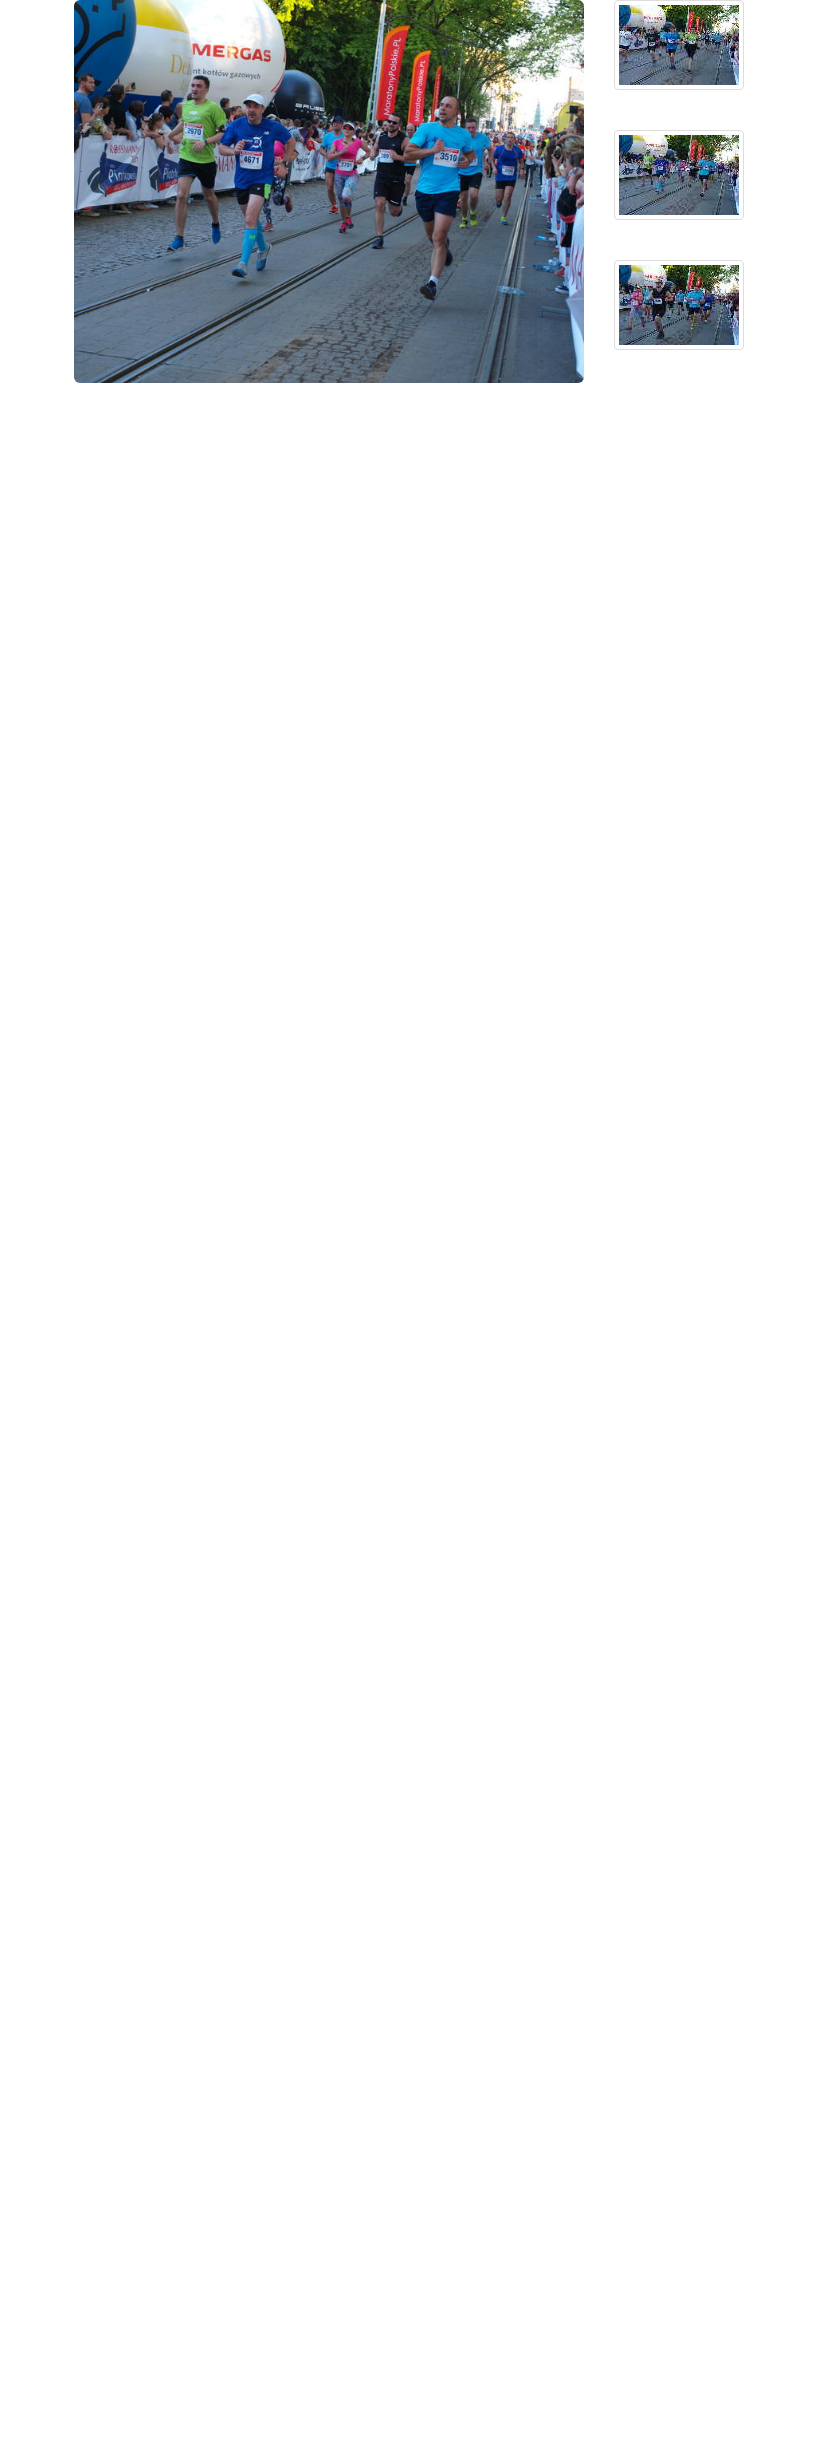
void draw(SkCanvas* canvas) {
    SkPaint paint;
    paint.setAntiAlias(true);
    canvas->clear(0xFFFFFFFF);
    canvas->drawImageRect(SkImages::DeferredFromEncodedData(SkData::MakeFromFileName("img1.png")), SkRect::MakeXYWH(74, 0, 510, 383), SkSamplingOptions());
    paint.setStyle(SkPaint::kStroke_Style);
    paint.setStrokeWidth(1);
    paint.setColor(0xFFDDDDDD);
    canvas->drawRoundRect(SkRect::MakeXYWH(614.5f, 0.5f, 129, 89), 3.5f, 3.5f, paint);
    canvas->drawImageRect(SkImages::DeferredFromEncodedData(SkData::MakeFromFileName("img2.png")), SkRect::MakeXYWH(619, 5, 120, 80), SkSamplingOptions());
    canvas->drawRoundRect(SkRect::MakeXYWH(614.5f, 130.5f, 129, 89), 3.5f, 3.5f, paint);
    canvas->drawImageRect(SkImages::DeferredFromEncodedData(SkData::MakeFromFileName("img3.png")), SkRect::MakeXYWH(619, 135, 120, 80), SkSamplingOptions());
    canvas->drawRoundRect(SkRect::MakeXYWH(614.5f, 260.5f, 129, 89), 3.5f, 3.5f, paint);
    canvas->drawImageRect(SkImages::DeferredFromEncodedData(SkData::MakeFromFileName("img4.png")), SkRect::MakeXYWH(619, 265, 120, 80), SkSamplingOptions());
}
